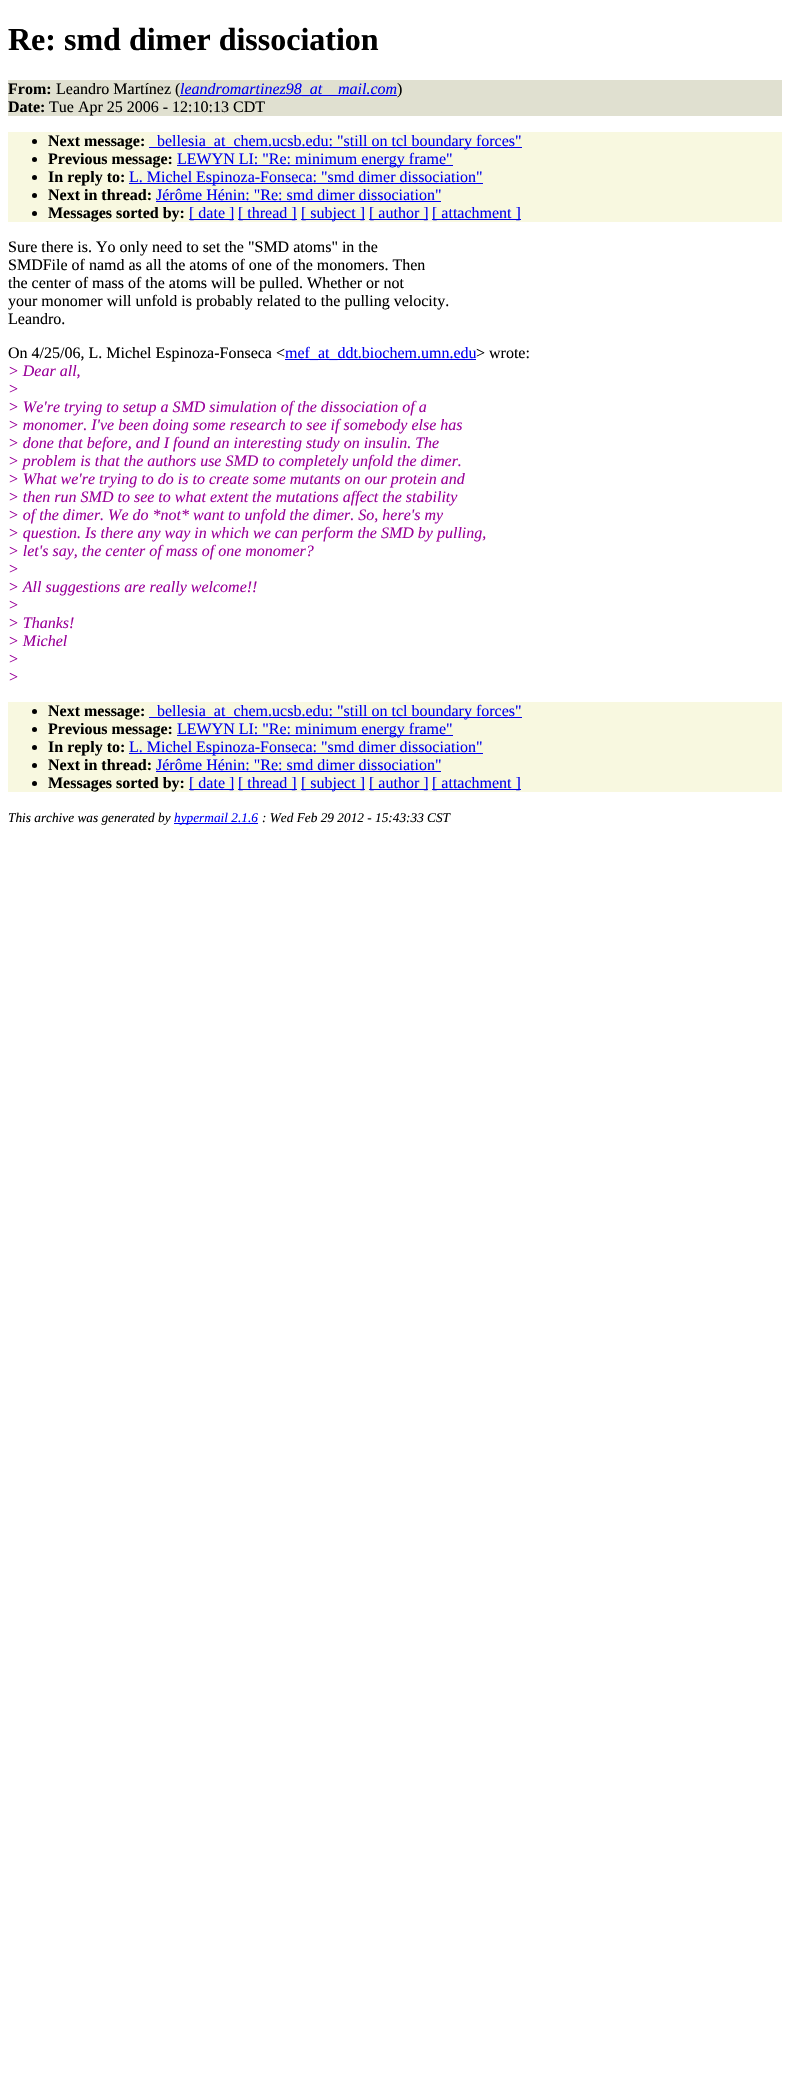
void draw(SkCanvas* canvas) {
    SkPaint paint;
    paint.setAntiAlias(true);
    canvas->clear(0xFFFFFFFF);
    SkFont font1(fontMgr->matchFamilyStyle("Liberation Serif", SkFontStyle::Bold()), 32);
    font1.setSubpixel(true);
    paint.setColor(0xFF000000);
    canvas->drawString("Re: smd dimer dissociation", 8, 50, font1, paint);
    paint.setColor(0xFFE0E0D0);
    canvas->drawRect(SkRect::MakeXYWH(8, 80, 774, 36), paint);
    SkFont font2(fontMgr->matchFamilyStyle("Liberation Serif", SkFontStyle::Bold()), 16);
    font2.setSubpixel(true);
    paint.setColor(0xFF000000);
    canvas->drawString("From:", 8, 94, font2, paint);
    SkFont font3(fontMgr->matchFamilyStyle("Liberation Serif", SkFontStyle::Normal()), 16);
    font3.setSubpixel(true);
    canvas->drawString("Leandro Martínez (", 56, 94, font3, paint);
    paint.setColor(0xFF0000EE);
    canvas->drawRect(SkRect::MakeXYWH(180, 95, 217, 1), paint);
    SkFont font4(fontMgr->matchFamilyStyle("Liberation Serif", SkFontStyle::Italic()), 16);
    font4.setSubpixel(true);
    canvas->drawString("leandromartinez98_at", 180, 94, font4, paint);
    canvas->drawString("mail.com", 338, 94, font4, paint);
    paint.setColor(0xFF000000);
    canvas->drawString(")", 397, 94, font3, paint);
    canvas->drawString("Date:", 8, 112, font2, paint);
    canvas->drawString("Tue Apr 25 2006 - 12:10:13 CDT", 49, 112, font3, paint);
    paint.setColor(0xFFF8F8E0);
    canvas->drawRect(SkRect::MakeXYWH(8, 132, 774, 90), paint);
    paint.setColor(0xFF000000);
    canvas->drawCircle(34.5f, 141.5f, 2.5f, paint);
    canvas->drawString("Next message:", 48, 146, font2, paint);
    paint.setColor(0xFF0000EE);
    canvas->drawRect(SkRect::MakeXYWH(149, 147, 373, 1), paint);
    canvas->drawString("bellesia_at_chem.ucsb.edu: \"still on tcl boundary forces\"", 157, 146, font3, paint);
    paint.setColor(0xFF000000);
    canvas->drawCircle(34.5f, 159.5f, 2.5f, paint);
    canvas->drawString("Previous message:", 48, 164, font2, paint);
    paint.setColor(0xFF0000EE);
    canvas->drawRect(SkRect::MakeXYWH(177, 165, 276, 1), paint);
    canvas->drawString("LEWYN LI: \"Re: minimum energy frame\"", 177, 164, font3, paint);
    paint.setColor(0xFF000000);
    canvas->drawCircle(34.5f, 177.5f, 2.5f, paint);
    canvas->drawString("In reply to:", 48, 182, font2, paint);
    paint.setColor(0xFF0000EE);
    canvas->drawRect(SkRect::MakeXYWH(129, 183, 354, 1), paint);
    canvas->drawString("L. Michel Espinoza-Fonseca: \"smd dimer dissociation\"", 129, 182, font3, paint);
    paint.setColor(0xFF000000);
    canvas->drawCircle(34.5f, 195.5f, 2.5f, paint);
    canvas->drawString("Next in thread:", 48, 200, font2, paint);
    paint.setColor(0xFF0000EE);
    canvas->drawString("Jérôme Hénin: \"Re: smd dimer dissociation\"", 156, 200, font3, paint);
    canvas->drawRect(SkRect::MakeXYWH(156, 201, 285, 1), paint);
    paint.setColor(0xFF000000);
    canvas->drawCircle(34.5f, 213.5f, 2.5f, paint);
    canvas->drawString("Messages sorted by:", 48, 218, font2, paint);
    paint.setColor(0xFF0000EE);
    canvas->drawRect(SkRect::MakeXYWH(189, 219, 45, 1), paint);
    canvas->drawString("[ date ]", 189, 218, font3, paint);
    canvas->drawRect(SkRect::MakeXYWH(238, 219, 59, 1), paint);
    canvas->drawString("[ thread ]", 238, 218, font3, paint);
    canvas->drawRect(SkRect::MakeXYWH(301, 219, 64, 1), paint);
    canvas->drawString("[ subject ]", 301, 218, font3, paint);
    canvas->drawRect(SkRect::MakeXYWH(369, 219, 59, 1), paint);
    canvas->drawString("[ author ]", 369, 218, font3, paint);
    canvas->drawRect(SkRect::MakeXYWH(432, 219, 89, 1), paint);
    canvas->drawString("[ attachment ]", 432, 218, font3, paint);
    paint.setColor(0xFF000000);
    canvas->drawString("Sure there is. Yo only need to set the \"SMD atoms\" in the", 8, 252, font3, paint);
    canvas->drawString("SMDFile of namd as all the atoms of one of the monomers. Then", 8, 270, font3, paint);
    canvas->drawString("the center of mass of the atoms will be pulled. Whether or not", 8, 288, font3, paint);
    canvas->drawString("your monomer will unfold is probably related to the pulling velocity.", 8, 306, font3, paint);
    canvas->drawString("Leandro.", 8, 324, font3, paint);
    canvas->drawString("On 4/25/06, L. Michel Espinoza-Fonseca <", 8, 358, font3, paint);
    paint.setColor(0xFF0000EE);
    canvas->drawRect(SkRect::MakeXYWH(285, 359, 191, 1), paint);
    canvas->drawString("mef_at_ddt.biochem.umn.edu", 285, 358, font3, paint);
    paint.setColor(0xFF000000);
    canvas->drawString("> wrote:", 476, 358, font3, paint);
    paint.setColor(0xFF990099);
    canvas->drawString("> Dear all,", 8, 376, font4, paint);
    canvas->drawString(">", 8, 394, font4, paint);
    canvas->drawString("> We're trying to setup a SMD simulation of the dissociation of a", 8, 412, font4, paint);
    canvas->drawString("> monomer. I've been doing some research to see if somebody else has", 8, 430, font4, paint);
    canvas->drawString("> done that before, and I found an interesting study on insulin. The", 8, 448, font4, paint);
    canvas->drawString("> problem is that the authors use SMD to completely unfold the dimer.", 8, 466, font4, paint);
    canvas->drawString("> What we're trying to do is to create some mutants on our protein and", 8, 484, font4, paint);
    canvas->drawString("> then run SMD to see to what extent the mutations affect the stability", 8, 502, font4, paint);
    canvas->drawString("> of the dimer. We do *not* want to unfold the dimer. So, here's my", 8, 520, font4, paint);
    canvas->drawString("> question. Is there any way in which we can perform the SMD by pulling,", 8, 538, font4, paint);
    canvas->drawString("> let's say, the center of mass of one monomer?", 8, 556, font4, paint);
    canvas->drawString(">", 8, 574, font4, paint);
    canvas->drawString("> All suggestions are really welcome!!", 8, 592, font4, paint);
    canvas->drawString(">", 8, 610, font4, paint);
    canvas->drawString("> Thanks!", 8, 628, font4, paint);
    canvas->drawString("> Michel", 8, 646, font4, paint);
    canvas->drawString(">", 8, 664, font4, paint);
    canvas->drawString(">", 8, 682, font4, paint);
    paint.setColor(0xFFF8F8E0);
    canvas->drawRect(SkRect::MakeXYWH(8, 702, 774, 90), paint);
    paint.setColor(0xFF000000);
    canvas->drawCircle(34.5f, 711.5f, 2.5f, paint);
    canvas->drawString("Next message:", 48, 716, font2, paint);
    paint.setColor(0xFF0000EE);
    canvas->drawRect(SkRect::MakeXYWH(149, 717, 373, 1), paint);
    canvas->drawString("bellesia_at_chem.ucsb.edu: \"still on tcl boundary forces\"", 157, 716, font3, paint);
    paint.setColor(0xFF000000);
    canvas->drawCircle(34.5f, 729.5f, 2.5f, paint);
    canvas->drawString("Previous message:", 48, 734, font2, paint);
    paint.setColor(0xFF0000EE);
    canvas->drawRect(SkRect::MakeXYWH(177, 735, 276, 1), paint);
    canvas->drawString("LEWYN LI: \"Re: minimum energy frame\"", 177, 734, font3, paint);
    paint.setColor(0xFF000000);
    canvas->drawCircle(34.5f, 747.5f, 2.5f, paint);
    canvas->drawString("In reply to:", 48, 752, font2, paint);
    paint.setColor(0xFF0000EE);
    canvas->drawRect(SkRect::MakeXYWH(129, 753, 354, 1), paint);
    canvas->drawString("L. Michel Espinoza-Fonseca: \"smd dimer dissociation\"", 129, 752, font3, paint);
    paint.setColor(0xFF000000);
    canvas->drawCircle(34.5f, 765.5f, 2.5f, paint);
    canvas->drawString("Next in thread:", 48, 770, font2, paint);
    paint.setColor(0xFF0000EE);
    canvas->drawString("Jérôme Hénin: \"Re: smd dimer dissociation\"", 156, 770, font3, paint);
    canvas->drawRect(SkRect::MakeXYWH(156, 771, 285, 1), paint);
    paint.setColor(0xFF000000);
    canvas->drawCircle(34.5f, 783.5f, 2.5f, paint);
    canvas->drawString("Messages sorted by:", 48, 788, font2, paint);
    paint.setColor(0xFF0000EE);
    canvas->drawRect(SkRect::MakeXYWH(189, 789, 45, 1), paint);
    canvas->drawString("[ date ]", 189, 788, font3, paint);
    canvas->drawRect(SkRect::MakeXYWH(238, 789, 59, 1), paint);
    canvas->drawString("[ thread ]", 238, 788, font3, paint);
    canvas->drawRect(SkRect::MakeXYWH(301, 789, 64, 1), paint);
    canvas->drawString("[ subject ]", 301, 788, font3, paint);
    canvas->drawRect(SkRect::MakeXYWH(369, 789, 59, 1), paint);
    canvas->drawString("[ author ]", 369, 788, font3, paint);
    canvas->drawRect(SkRect::MakeXYWH(432, 789, 89, 1), paint);
    canvas->drawString("[ attachment ]", 432, 788, font3, paint);
    SkFont font5(fontMgr->matchFamilyStyle("Liberation Serif", SkFontStyle::Italic()), 13.3f);
    font5.setSubpixel(true);
    paint.setColor(0xFF000000);
    canvas->drawString("This archive was generated by", 8, 822, font5, paint);
    paint.setColor(0xFF0000EE);
    canvas->drawRect(SkRect::MakeXYWH(174, 823, 84, 1), paint);
    canvas->drawString("hypermail 2.1.6", 174, 822, font5, paint);
    paint.setColor(0xFF000000);
    canvas->drawString(": Wed Feb 29 2012 - 15:43:33 CST", 262, 822, font5, paint);
}
